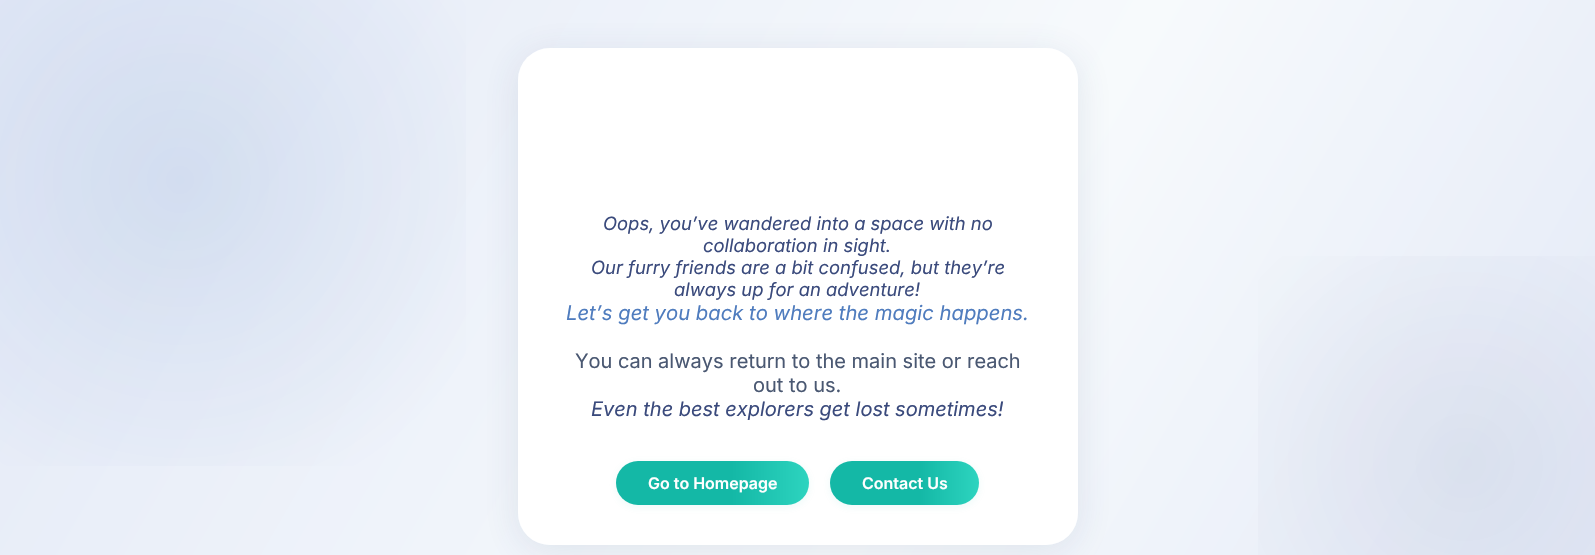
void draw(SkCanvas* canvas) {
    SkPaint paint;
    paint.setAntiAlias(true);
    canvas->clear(0xFFFFFFFF);
    {
        const SkColor colors[] = {0xFFE3E9F7, 0xFFF7FAFC, 0xFFE3E9F7};
        const float stops[] = {0, 0.6f, 1};
        const SkPoint ends[] = {{71, -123}, {1524, 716}};
        paint.setShader(SkGradientShader::MakeLinear(ends, colors, stops, 3, SkTileMode::kClamp));
        paint.setAlpha(255);
    }
    canvas->drawRect(SkRect::MakeXYWH(0, 0, 1595, 555), paint);
    {
        const SkColor colors[] = {0x244F7CBE, 0x004F7CBE};
        const float stops[] = {0, 0.8f};
        paint.setShader(SkGradientShader::MakeRadial({180, 180}, 424, colors, stops, 2, SkTileMode::kClamp));
        paint.setAlpha(255);
    }
    canvas->drawRect(SkRect::MakeXYWH(0, 0, 466, 466), paint);
    canvas->save();
    canvas->clipPath(SkPathBuilder(SkPathFillType::kEvenOdd).moveTo(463, 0).lineTo(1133, 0).lineTo(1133, 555).lineTo(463, 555).close().moveTo(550, 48).lineTo(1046, 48).cubicTo(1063.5f, 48, 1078, 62.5f, 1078, 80).lineTo(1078, 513).cubicTo(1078, 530.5f, 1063.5f, 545, 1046, 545).lineTo(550, 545).cubicTo(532.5f, 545, 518, 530.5f, 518, 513).lineTo(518, 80).cubicTo(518, 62.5f, 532.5f, 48, 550, 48).close().detach(), true);
    paint.setShader(nullptr);
    paint.setColor(0x1F3C5078);
    paint.setMaskFilter(SkMaskFilter::MakeBlur(kNormal_SkBlurStyle, 18));
    canvas->drawRoundRect(SkRect::MakeXYWH(518, 54, 560, 497), 32, 32, paint);
    paint.setMaskFilter(nullptr);
    canvas->restore();
    paint.setColor(0xF5FFFFFF);
    canvas->drawRoundRect(SkRect::MakeXYWH(518, 48, 560, 497), 32, 32, paint);
    SkFont font1(fontMgr->matchFamilyStyle("Inter", SkFontStyle::Italic()), 18.4f);
    font1.setSubpixel(true);
    paint.setColor(0xFF3A4A7C);
    canvas->drawString("Oops, you’ve wandered into a space with no", 603, 230, font1, paint);
    canvas->drawString("collaboration in sight.", 703, 252, font1, paint);
    canvas->drawString("Our furry friends are a bit confused, but they’re", 591, 274, font1, paint);
    canvas->drawString("always up for an adventure!", 674, 296, font1, paint);
    SkFont font2(fontMgr->matchFamilyStyle("Inter", SkFontStyle::Italic()), 20.25f);
    font2.setSubpixel(true);
    paint.setColor(0xFF4F7CBE);
    canvas->drawString("Let’s get you back to where the magic happens.", 566, 320, font2, paint);
    SkFont font3(fontMgr->matchFamilyStyle("Inter", SkFontStyle::Normal()), 20);
    font3.setSubpixel(true);
    paint.setColor(0xFF4A5872);
    canvas->drawString("You can always return to the main site or reach", 575, 368, font3, paint);
    canvas->drawString("out to us.", 753, 392, font3, paint);
    SkFont font4(fontMgr->matchFamilyStyle("Inter", SkFontStyle::Italic()), 20);
    font4.setSubpixel(true);
    paint.setColor(0xFF3A4A7C);
    canvas->drawString("Even the best explorers get lost sometimes!", 591, 416, font4, paint);
    paint.setColor(0x1414B8A6);
    paint.setMaskFilter(SkMaskFilter::MakeBlur(kNormal_SkBlurStyle, 4));
    canvas->drawRoundRect(SkRect::MakeXYWH(616, 463, 193, 44), 22, 22, paint);
    paint.setMaskFilter(nullptr);
    {
        const SkColor colors[] = {0xFF14B8A6, 0xFF2DD4BF};
        const float stops[] = {0.6f, 1};
        const SkPoint ends[] = {{616, 483}, {809, 483}};
        paint.setShader(SkGradientShader::MakeLinear(ends, colors, stops, 2, SkTileMode::kClamp));
        paint.setAlpha(255);
    }
    canvas->drawRoundRect(SkRect::MakeXYWH(616, 461, 193, 44), 22, 22, paint);
    SkFont font5(fontMgr->matchFamilyStyle("Inter", SkFontStyle(600, SkFontStyle::kNormal_Width, SkFontStyle::kUpright_Slant)), 16);
    font5.setSubpixel(true);
    paint.setShader(nullptr);
    paint.setColor(0xFFFFFFFF);
    canvas->drawString("Go to Homepage", 648, 489, font5, paint);
    paint.setColor(0x1414B8A6);
    paint.setMaskFilter(SkMaskFilter::MakeBlur(kNormal_SkBlurStyle, 4));
    canvas->drawRoundRect(SkRect::MakeXYWH(830, 463, 149, 44), 22, 22, paint);
    paint.setMaskFilter(nullptr);
    {
        const SkColor colors[] = {0xFF14B8A6, 0xFF2DD4BF};
        const float stops[] = {0.6f, 1};
        const SkPoint ends[] = {{830, 483}, {979, 483}};
        paint.setShader(SkGradientShader::MakeLinear(ends, colors, stops, 2, SkTileMode::kClamp));
        paint.setAlpha(255);
    }
    canvas->drawRoundRect(SkRect::MakeXYWH(830, 461, 149, 44), 22, 22, paint);
    paint.setShader(nullptr);
    paint.setColor(0xFFFFFFFF);
    canvas->drawString("Contact Us", 862, 489, font5, paint);
    {
        const SkColor colors[] = {0x143A4A7C, 0x003A4A7C};
        const float stops[] = {0, 0.8f};
        paint.setShader(SkGradientShader::MakeRadial({1465, 463}, 354, colors, stops, 2, SkTileMode::kClamp));
        paint.setAlpha(255);
    }
    canvas->drawRect(SkRect::MakeXYWH(1258, 256, 337, 299), paint);
}
